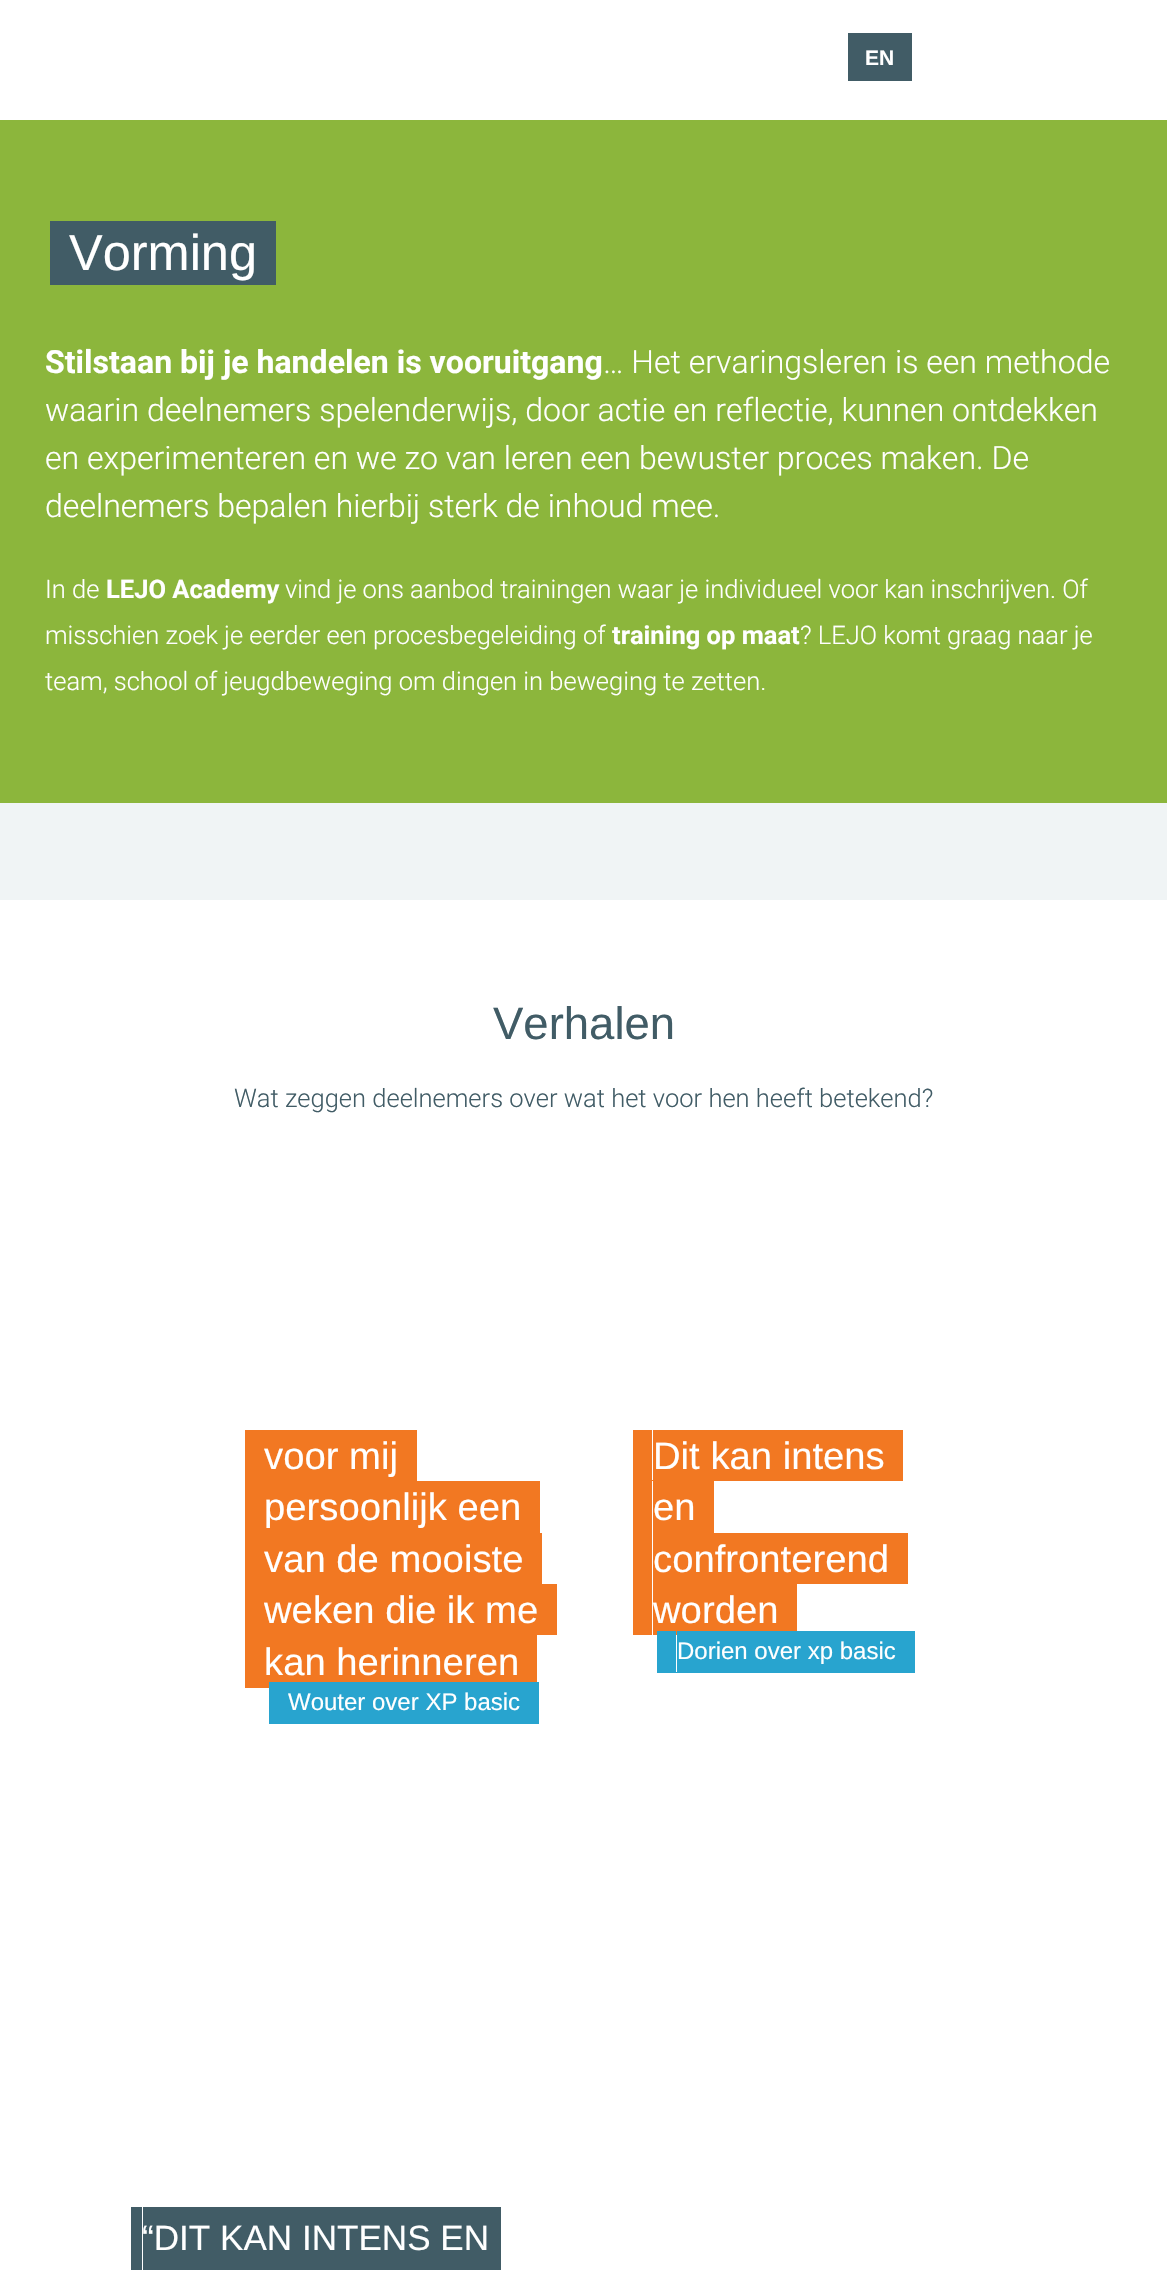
void draw(SkCanvas* canvas) {
    SkPaint paint;
    paint.setAntiAlias(true);
    canvas->clear(0xFFFFFFFF);
    paint.setColor(0xFF415C66);
    canvas->drawRect(SkRect::MakeXYWH(848, 33, 64, 48), paint);
    SkFont font1(fontMgr->matchFamilyStyle("Liberation Sans", SkFontStyle::Bold()), 21);
    font1.setSubpixel(true);
    paint.setColor(0xFFFFFFFF);
    canvas->drawString("EN", 865, 65, font1, paint);
    paint.setColor(0xFF8CB63C);
    canvas->drawRect(SkRect::MakeXYWH(0, 120, 1167, 683), paint);
    paint.setColor(0xFF415C66);
    canvas->drawRect(SkRect::MakeXYWH(69, 221, 207, 64), paint);
    SkFont font2(fontMgr->matchFamilyStyle("Liberation Sans", SkFontStyle::Normal()), 50.5f);
    font2.setSubpixel(true);
    paint.setColor(0xFFFFFFFF);
    canvas->drawString("Vorming", 69, 270, font2, paint);
    paint.setColor(0xFF415C66);
    canvas->drawRect(SkRect::MakeXYWH(50, 221, 19, 64), paint);
    SkFont font3(fontMgr->matchFamilyStyle("Roboto", SkFontStyle::Bold()), 32.05f);
    font3.setSubpixel(true);
    paint.setColor(0xFFFFFFFF);
    canvas->drawString("Stilstaan bij je handelen is vooruitgang", 45, 373, font3, paint);
    SkFont font4(fontMgr->matchFamilyStyle("Roboto", SkFontStyle(300, SkFontStyle::kNormal_Width, SkFontStyle::kUpright_Slant)), 32.05f);
    font4.setSubpixel(true);
    canvas->drawString("… Het ervaringsleren is een methode", 603, 373, font4, paint);
    canvas->drawString("waarin deelnemers spelenderwijs, door actie en reflectie, kunnen ontdekken", 45, 421, font4, paint);
    canvas->drawString("en experimenteren en we zo van leren een bewuster proces maken. De", 45, 469, font4, paint);
    canvas->drawString("deelnemers bepalen hierbij sterk de inhoud mee.", 45, 517, font4, paint);
    SkFont font5(fontMgr->matchFamilyStyle("Roboto", SkFontStyle(300, SkFontStyle::kNormal_Width, SkFontStyle::kUpright_Slant)), 25.5f);
    font5.setSubpixel(true);
    canvas->drawString("In de", 45, 598, font5, paint);
    SkFont font6(fontMgr->matchFamilyStyle("Roboto", SkFontStyle::Bold()), 25.5f);
    font6.setSubpixel(true);
    canvas->drawString("LEJO Academy", 106, 598, font6, paint);
    canvas->drawString("vind je ons aanbod trainingen waar je individueel voor kan inschrijven. Of", 285, 598, font5, paint);
    canvas->drawString("misschien zoek je eerder een procesbegeleiding of", 45, 644, font5, paint);
    canvas->drawString("training op maat", 612, 644, font6, paint);
    canvas->drawString("? LEJO komt graag naar je", 800, 644, font5, paint);
    canvas->drawString("team, school of jeugdbeweging om dingen in beweging te zetten.", 45, 690, font5, paint);
    paint.setColor(0xFFF0F4F5);
    canvas->drawRect(SkRect::MakeXYWH(0, 803, 1167, 97), paint);
    SkFont font7(fontMgr->matchFamilyStyle("Liberation Sans", SkFontStyle::Normal()), 45.5f);
    font7.setSubpixel(true);
    paint.setColor(0xFF415C66);
    canvas->drawString("Verhalen", 493, 1039, font7, paint);
    canvas->drawString("Wat zeggen deelnemers over wat het voor hen heeft betekend?", 234, 1107, font5, paint);
    paint.setColor(0xFFF27822);
    canvas->drawPath(SkPathBuilder().moveTo(245, 1430).lineTo(245, 1481).lineTo(378, 1481).lineTo(378, 1480).lineTo(264, 1480).lineTo(264, 1430).close().detach(), paint);
    canvas->drawPath(SkPathBuilder().moveTo(284, 1480).lineTo(284, 1481).lineTo(417, 1481).lineTo(417, 1430).lineTo(398, 1430).lineTo(398, 1480).close().detach(), paint);
    canvas->drawRect(SkRect::MakeXYWH(264, 1430, 134, 50), paint);
    SkFont font8(fontMgr->matchFamilyStyle("Liberation Sans", SkFontStyle::Normal()), 38.25f);
    font8.setSubpixel(true);
    paint.setColor(0xFFFFFFFF);
    canvas->drawString("voor mij", 264, 1469, font8, paint);
    paint.setColor(0xFFF27822);
    canvas->drawRect(SkRect::MakeXYWH(264, 1481, 276, 52), paint);
    paint.setColor(0xFFFFFFFF);
    canvas->drawString("persoonlijk een", 264, 1520, font8, paint);
    paint.setColor(0xFFF27822);
    canvas->drawRect(SkRect::MakeXYWH(245, 1481, 19, 154), paint);
    canvas->drawRect(SkRect::MakeXYWH(264, 1533, 278, 51), paint);
    paint.setColor(0xFFFFFFFF);
    canvas->drawString("van de mooiste", 264, 1572, font8, paint);
    paint.setColor(0xFFF27822);
    canvas->drawRect(SkRect::MakeXYWH(264, 1584, 293, 51), paint);
    paint.setColor(0xFFFFFFFF);
    canvas->drawString("weken die ik me", 264, 1623, font8, paint);
    paint.setColor(0xFFF27822);
    canvas->drawRect(SkRect::MakeXYWH(264, 1635, 254, 53), paint);
    paint.setColor(0xFFFFFFFF);
    canvas->drawString("kan herinneren", 264, 1675, font8, paint);
    paint.setColor(0xFFF27822);
    canvas->drawPath(SkPathBuilder().moveTo(245, 1635).lineTo(245, 1688).lineTo(498, 1688).lineTo(264, 1688).lineTo(264, 1635).close().detach(), paint);
    canvas->drawPath(SkPathBuilder().moveTo(284, 1688).lineTo(537, 1688).lineTo(537, 1635).lineTo(518, 1635).lineTo(518, 1688).close().detach(), paint);
    paint.setColor(0xFF28A4CF);
    canvas->drawPath(SkPathBuilder().moveTo(269, 1682).lineTo(269, 1724).lineTo(500, 1724).lineTo(288, 1724).lineTo(288, 1682).close().detach(), paint);
    canvas->drawPath(SkPathBuilder().moveTo(308, 1724).lineTo(539, 1724).lineTo(539, 1682).lineTo(519, 1682).lineTo(519, 1724).close().detach(), paint);
    canvas->drawRect(SkRect::MakeXYWH(288, 1682, 231, 42), paint);
    SkFont font9(fontMgr->matchFamilyStyle("Liberation Sans", SkFontStyle::Normal()), 24);
    font9.setSubpixel(true);
    paint.setColor(0xFFFFFFFF);
    canvas->drawString("Wouter over XP basic", 288, 1710, font9, paint);
    paint.setColor(0xFFF27822);
    canvas->drawPath(SkPathBuilder().moveTo(633, 1430).lineTo(633, 1481).lineTo(864, 1481).lineTo(864, 1480).lineTo(652, 1480).lineTo(652, 1430).close().detach(), paint);
    canvas->drawPath(SkPathBuilder().moveTo(672, 1480).lineTo(672, 1481).lineTo(903, 1481).lineTo(903, 1430).lineTo(884, 1430).lineTo(884, 1480).close().detach(), paint);
    canvas->drawRect(SkRect::MakeXYWH(653, 1430, 231, 50), paint);
    paint.setColor(0xFFFFFFFF);
    canvas->drawString("Dit kan intens", 653, 1469, font8, paint);
    paint.setColor(0xFFF27822);
    canvas->drawRect(SkRect::MakeXYWH(653, 1481, 61, 52), paint);
    paint.setColor(0xFFFFFFFF);
    canvas->drawString("en", 653, 1520, font8, paint);
    paint.setColor(0xFFF27822);
    canvas->drawRect(SkRect::MakeXYWH(653, 1533, 255, 51), paint);
    paint.setColor(0xFFFFFFFF);
    canvas->drawString("confronterend", 653, 1572, font8, paint);
    paint.setColor(0xFFF27822);
    canvas->drawRect(SkRect::MakeXYWH(633, 1481, 19, 154), paint);
    canvas->drawRect(SkRect::MakeXYWH(653, 1584, 124, 51), paint);
    paint.setColor(0xFFFFFFFF);
    canvas->drawString("worden", 653, 1623, font8, paint);
    paint.setColor(0xFFF27822);
    canvas->drawRect(SkRect::MakeXYWH(777, 1584, 20, 47), paint);
    paint.setColor(0xFF28A4CF);
    canvas->drawPath(SkPathBuilder().moveTo(657, 1631).lineTo(657, 1673).lineTo(876, 1673).lineTo(876, 1672).lineTo(676, 1672).lineTo(676, 1631).close().detach(), paint);
    canvas->drawPath(SkPathBuilder().moveTo(696, 1672).lineTo(696, 1673).lineTo(915, 1673).lineTo(915, 1631).lineTo(896, 1631).lineTo(896, 1672).close().detach(), paint);
    canvas->drawRect(SkRect::MakeXYWH(677, 1631, 219, 41), paint);
    paint.setColor(0xFFFFFFFF);
    canvas->drawString("Dorien over xp basic", 677, 1659, font9, paint);
    paint.setColor(0xFF415C66);
    canvas->drawRect(SkRect::MakeXYWH(143, 2207, 346, 63), paint);
    SkFont font10(fontMgr->matchFamilyStyle("Liberation Sans", SkFontStyle::Normal()), 35.1f);
    font10.setSubpixel(true);
    paint.setColor(0xFFFFFFFF);
    canvas->drawString("“DIT KAN INTENS EN", 142, 2250, font10, paint);
    paint.setColor(0xFF415C66);
    canvas->drawPath(SkPathBuilder().moveTo(131, 2207).lineTo(131, 2270).lineTo(477, 2270).lineTo(142, 2270).lineTo(142, 2207).close().detach(), paint);
    canvas->drawPath(SkPathBuilder().moveTo(155, 2270).lineTo(501, 2270).lineTo(501, 2207).lineTo(489, 2207).lineTo(489, 2270).close().detach(), paint);
}
